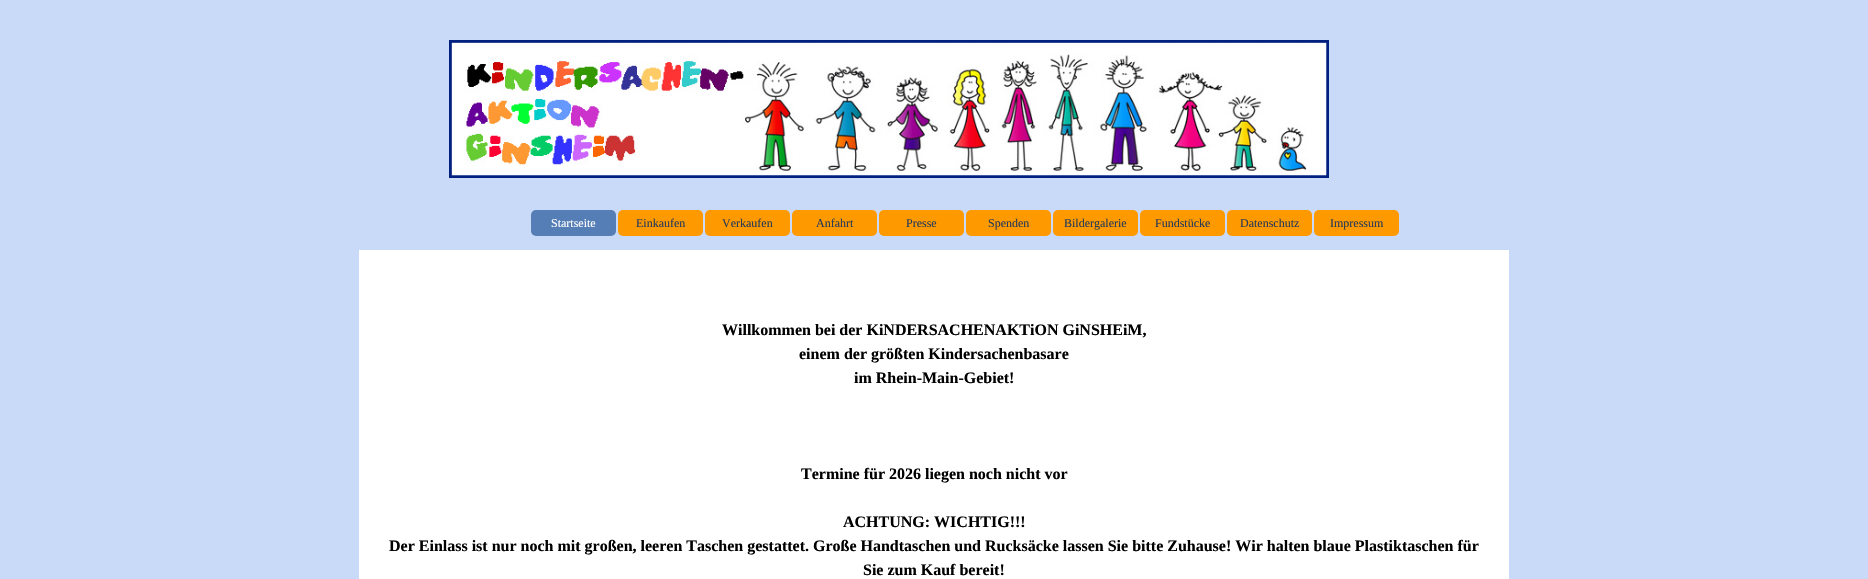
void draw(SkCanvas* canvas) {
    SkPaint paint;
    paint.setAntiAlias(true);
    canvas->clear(0xFFC9DAF8);
    canvas->drawImageRect(SkImages::DeferredFromEncodedData(SkData::MakeFromFileName("img1.png")), SkRect::MakeXYWH(449, 40, 880, 138), SkSamplingOptions());
    paint.setColor(0xFF567EB6);
    canvas->drawRoundRect(SkRect::MakeXYWH(531, 210, 85, 26), 5, 5, paint);
    SkFont font1(fontMgr->matchFamilyStyle("Liberation Serif", SkFontStyle::Normal()), 12);
    font1.setSubpixel(true);
    paint.setColor(0xFFFFFFFF);
    canvas->drawString("Startseite", 551, 227, font1, paint);
    paint.setColor(0xFFFF9900);
    canvas->drawRoundRect(SkRect::MakeXYWH(618, 210, 85, 26), 5, 5, paint);
    paint.setColor(0xFF253A58);
    canvas->drawString("Einkaufen", 636, 227, font1, paint);
    paint.setColor(0xFFFF9900);
    canvas->drawRoundRect(SkRect::MakeXYWH(705, 210, 85, 26), 5, 5, paint);
    paint.setColor(0xFF253A58);
    canvas->drawString("Verkaufen", 722, 227, font1, paint);
    paint.setColor(0xFFFF9900);
    canvas->drawRoundRect(SkRect::MakeXYWH(792, 210, 85, 26), 5, 5, paint);
    paint.setColor(0xFF253A58);
    canvas->drawString("Anfahrt", 816, 227, font1, paint);
    paint.setColor(0xFFFF9900);
    canvas->drawRoundRect(SkRect::MakeXYWH(879, 210, 85, 26), 5, 5, paint);
    paint.setColor(0xFF253A58);
    canvas->drawString("Presse", 906, 227, font1, paint);
    paint.setColor(0xFFFF9900);
    canvas->drawRoundRect(SkRect::MakeXYWH(966, 210, 85, 26), 5, 5, paint);
    paint.setColor(0xFF253A58);
    canvas->drawString("Spenden", 988, 227, font1, paint);
    paint.setColor(0xFFFF9900);
    canvas->drawRoundRect(SkRect::MakeXYWH(1053, 210, 85, 26), 5, 5, paint);
    paint.setColor(0xFF253A58);
    canvas->drawString("Bildergalerie", 1064, 227, font1, paint);
    paint.setColor(0xFFFF9900);
    canvas->drawRoundRect(SkRect::MakeXYWH(1140, 210, 85, 26), 5, 5, paint);
    paint.setColor(0xFF253A58);
    canvas->drawString("Fundstücke", 1155, 227, font1, paint);
    paint.setColor(0xFFFF9900);
    canvas->drawRoundRect(SkRect::MakeXYWH(1227, 210, 85, 26), 5, 5, paint);
    paint.setColor(0xFF253A58);
    canvas->drawString("Datenschutz", 1240, 227, font1, paint);
    paint.setColor(0xFFFF9900);
    canvas->drawRoundRect(SkRect::MakeXYWH(1314, 210, 85, 26), 5, 5, paint);
    paint.setColor(0xFF253A58);
    canvas->drawString("Impressum", 1330, 227, font1, paint);
    paint.setColor(0xFFFFFFFF);
    canvas->drawRect(SkRect::MakeXYWH(359, 250, 1150, 329), paint);
    SkFont font2(fontMgr->matchFamilyStyle("Liberation Serif", SkFontStyle::Bold()), 16);
    font2.setSubpixel(true);
    paint.setColor(0xFF000000);
    canvas->drawString("Willkommen bei der KiNDERSACHENAKTiON GiNSHEiM,", 722, 335, font2, paint);
    canvas->drawString("einem der größten Kindersachenbasare", 799, 359, font2, paint);
    canvas->drawString("im Rhein-Main-Gebiet!", 854, 383, font2, paint);
    canvas->drawString("Termine für 2026 liegen noch nicht vor", 801, 479, font2, paint);
    canvas->drawString("ACHTUNG: WICHTIG!!!", 843, 527, font2, paint);
    canvas->drawString("Der Einlass ist nur noch mit großen, leeren Taschen gestattet. Große Handtaschen und Rucksäcke lassen Sie bitte Zuhause! Wir halten blaue Plastiktaschen für", 389, 551, font2, paint);
    canvas->drawString("Sie zum Kauf bereit!", 863, 575, font2, paint);
}
